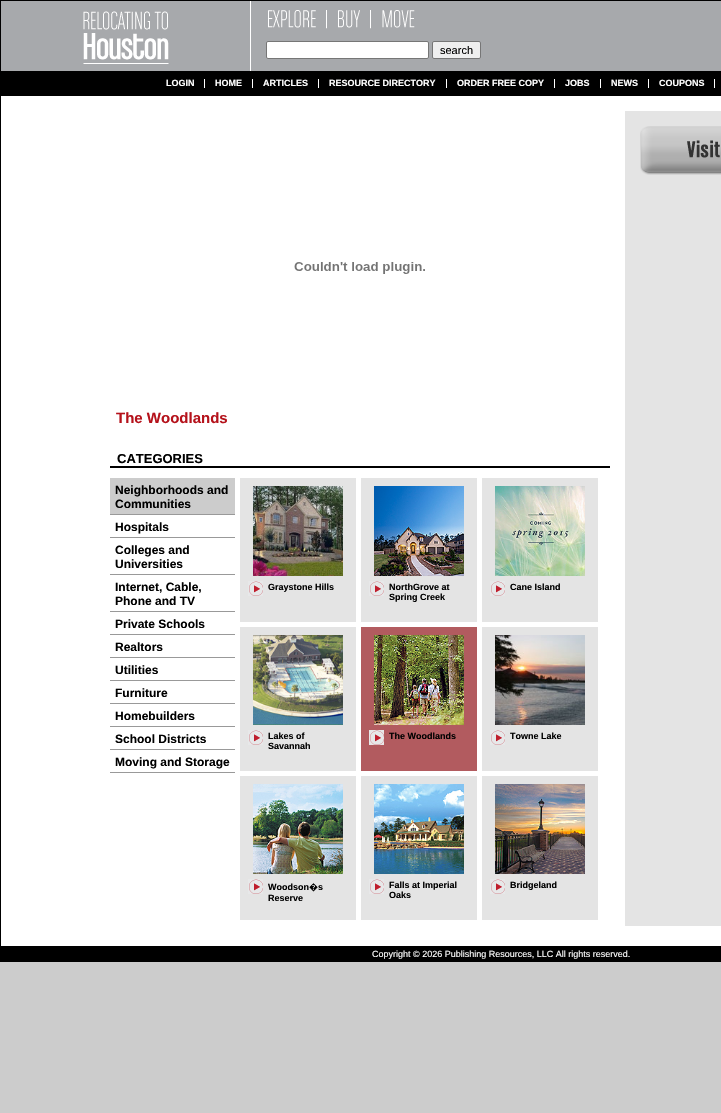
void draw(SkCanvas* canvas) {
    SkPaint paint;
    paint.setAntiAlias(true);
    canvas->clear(0xFFCCCCCC);
    paint.setColor(0xFF000000);
    canvas->drawRect(SkRect::MakeXYWH(0, 0, 721, 1), paint);
    paint.setColor(0xFFA7A9AC);
    canvas->drawRect(SkRect::MakeXYWH(1, 1, 720, 70), paint);
    paint.setColor(0xFF000000);
    canvas->drawRect(SkRect::MakeXYWH(0, 1, 1, 70), paint);
    canvas->drawImageRect(SkImages::DeferredFromEncodedData(SkData::MakeFromFileName("img1.png")), SkRect::MakeXYWH(83, 11, 86, 53), SkSamplingOptions());
    paint.setColor(0xFFFFFFFF);
    canvas->drawRect(SkRect::MakeXYWH(250, 1, 1, 70), paint);
    canvas->drawImageRect(SkImages::DeferredFromEncodedData(SkData::MakeFromFileName("img2.png")), SkRect::MakeXYWH(268, 10, 147, 19), SkSamplingOptions());
    canvas->drawRoundRect(SkRect::MakeXYWH(266.5f, 41.5f, 162, 17), 1.5f, 1.5f, paint);
    paint.setStyle(SkPaint::kStroke_Style);
    paint.setStrokeWidth(1);
    paint.setColor(0xFF767676);
    canvas->drawRoundRect(SkRect::MakeXYWH(266.5f, 41.5f, 162, 17), 1.5f, 1.5f, paint);
    paint.setStyle(SkPaint::kFill_Style);
    paint.setColor(0xFFEFEFEF);
    canvas->drawRoundRect(SkRect::MakeXYWH(432.5f, 41.5f, 48, 17), 1.5f, 1.5f, paint);
    paint.setStyle(SkPaint::kStroke_Style);
    paint.setColor(0xFF767676);
    canvas->drawRoundRect(SkRect::MakeXYWH(432.5f, 41.5f, 48, 17), 1.5f, 1.5f, paint);
    SkFont font1(fontMgr->matchFamilyStyle("Liberation Sans", SkFontStyle::Normal()), 11);
    font1.setSubpixel(true);
    paint.setStyle(SkPaint::kFill_Style);
    paint.setColor(0xFF000000);
    canvas->drawString("search", 440, 54, font1, paint);
    canvas->drawRect(SkRect::MakeXYWH(0, 71, 721, 25), paint);
    paint.setColor(0xFFFFFFFF);
    canvas->drawRect(SkRect::MakeXYWH(204, 79, 1, 9), paint);
    SkFont font2(fontMgr->matchFamilyStyle("Liberation Sans", SkFontStyle::Bold()), 9);
    font2.setSubpixel(true);
    canvas->drawString("LOGIN", 166, 86, font2, paint);
    canvas->drawRect(SkRect::MakeXYWH(252, 79, 1, 9), paint);
    canvas->drawString("HOME", 215, 86, font2, paint);
    canvas->drawRect(SkRect::MakeXYWH(318, 79, 1, 9), paint);
    canvas->drawString("ARTICLES", 263, 86, font2, paint);
    canvas->drawRect(SkRect::MakeXYWH(446, 79, 1, 9), paint);
    canvas->drawString("RESOURCE DIRECTORY", 329, 86, font2, paint);
    canvas->drawRect(SkRect::MakeXYWH(554, 79, 1, 9), paint);
    canvas->drawString("ORDER FREE COPY", 457, 86, font2, paint);
    canvas->drawRect(SkRect::MakeXYWH(600, 79, 1, 9), paint);
    canvas->drawString("JOBS", 565, 86, font2, paint);
    canvas->drawRect(SkRect::MakeXYWH(648, 79, 1, 9), paint);
    canvas->drawString("NEWS", 611, 86, font2, paint);
    canvas->drawRect(SkRect::MakeXYWH(714, 79, 1, 9), paint);
    canvas->drawString("COUPONS", 659, 86, font2, paint);
    canvas->drawRect(SkRect::MakeXYWH(1, 96, 720, 850), paint);
    paint.setColor(0xFF000000);
    canvas->drawRect(SkRect::MakeXYWH(0, 96, 1, 850), paint);
    canvas->drawImageRect(SkImages::DeferredFromEncodedData(SkData::MakeFromFileName("img3.png")), SkRect::MakeXYWH(294, 262, 131, 12), SkSamplingOptions());
    SkFont font3(fontMgr->matchFamilyStyle("Liberation Sans", SkFontStyle::Bold()), 15);
    font3.setSubpixel(true);
    paint.setColor(0xFFB5121B);
    canvas->drawString("The Woodlands", 116, 423, font3, paint);
    paint.setColor(0xFF000000);
    canvas->drawRect(SkRect::MakeXYWH(110, 466, 500, 2), paint);
    SkFont font4(fontMgr->matchFamilyStyle("Liberation Sans", SkFontStyle::Bold()), 13);
    font4.setSubpixel(true);
    canvas->drawString("CATEGORIES", 117, 463, font4, paint);
    paint.setColor(0xFFCCCCCC);
    canvas->drawRect(SkRect::MakeXYWH(110, 478, 125, 36), paint);
    paint.setColor(0xFF999999);
    canvas->drawRect(SkRect::MakeXYWH(110, 514, 125, 1), paint);
    SkFont font5(fontMgr->matchFamilyStyle("Liberation Sans", SkFontStyle::Bold()), 12);
    font5.setSubpixel(true);
    paint.setColor(0xFF000000);
    canvas->drawString("Neighborhoods and", 115, 494, font5, paint);
    canvas->drawString("Communities", 115, 508, font5, paint);
    paint.setColor(0xFF999999);
    canvas->drawRect(SkRect::MakeXYWH(110, 537, 125, 1), paint);
    paint.setColor(0xFF000000);
    canvas->drawString("Hospitals", 115, 531, font5, paint);
    paint.setColor(0xFF999999);
    canvas->drawRect(SkRect::MakeXYWH(110, 574, 125, 1), paint);
    paint.setColor(0xFF000000);
    canvas->drawString("Colleges and", 115, 554, font5, paint);
    canvas->drawString("Universities", 115, 568, font5, paint);
    paint.setColor(0xFF999999);
    canvas->drawRect(SkRect::MakeXYWH(110, 611, 125, 1), paint);
    paint.setColor(0xFF000000);
    canvas->drawString("Internet, Cable,", 115, 591, font5, paint);
    canvas->drawString("Phone and TV", 115, 605, font5, paint);
    paint.setColor(0xFF999999);
    canvas->drawRect(SkRect::MakeXYWH(110, 634, 125, 1), paint);
    paint.setColor(0xFF000000);
    canvas->drawString("Private Schools", 115, 628, font5, paint);
    paint.setColor(0xFF999999);
    canvas->drawRect(SkRect::MakeXYWH(110, 657, 125, 1), paint);
    paint.setColor(0xFF000000);
    canvas->drawString("Realtors", 115, 651, font5, paint);
    paint.setColor(0xFF999999);
    canvas->drawRect(SkRect::MakeXYWH(110, 680, 125, 1), paint);
    paint.setColor(0xFF000000);
    canvas->drawString("Utilities", 115, 674, font5, paint);
    paint.setColor(0xFF999999);
    canvas->drawRect(SkRect::MakeXYWH(110, 703, 125, 1), paint);
    paint.setColor(0xFF000000);
    canvas->drawString("Furniture", 115, 697, font5, paint);
    paint.setColor(0xFF999999);
    canvas->drawRect(SkRect::MakeXYWH(110, 726, 125, 1), paint);
    paint.setColor(0xFF000000);
    canvas->drawString("Homebuilders", 115, 720, font5, paint);
    paint.setColor(0xFF999999);
    canvas->drawRect(SkRect::MakeXYWH(110, 749, 125, 1), paint);
    paint.setColor(0xFF000000);
    canvas->drawString("School Districts", 115, 743, font5, paint);
    paint.setColor(0xFF999999);
    canvas->drawRect(SkRect::MakeXYWH(110, 772, 125, 1), paint);
    paint.setColor(0xFF000000);
    canvas->drawString("Moving and Storage", 115, 766, font5, paint);
    paint.setColor(0xFFE4E4E4);
    canvas->drawRect(SkRect::MakeXYWH(240, 478, 116, 144), paint);
    canvas->drawImageRect(SkImages::DeferredFromEncodedData(SkData::MakeFromFileName("img4.png")), SkRect::MakeXYWH(253, 486, 90, 90), SkSamplingOptions());
    canvas->drawImageRect(SkImages::DeferredFromEncodedData(SkData::MakeFromFileName("img5.png")), SkRect::MakeXYWH(248, 581, 15, 15), SkSamplingOptions());
    paint.setColor(0xFF000000);
    canvas->drawString("Graystone Hills", 268, 590, font2, paint);
    paint.setColor(0xFFE4E4E4);
    canvas->drawRect(SkRect::MakeXYWH(361, 478, 116, 144), paint);
    canvas->drawImageRect(SkImages::DeferredFromEncodedData(SkData::MakeFromFileName("img6.png")), SkRect::MakeXYWH(374, 486, 90, 90), SkSamplingOptions());
    canvas->drawImageRect(SkImages::DeferredFromEncodedData(SkData::MakeFromFileName("img5.png")), SkRect::MakeXYWH(369, 581, 15, 15), SkSamplingOptions());
    paint.setColor(0xFF000000);
    canvas->drawString("NorthGrove at", 389, 590, font2, paint);
    canvas->drawString("Spring Creek", 389, 600, font2, paint);
    paint.setColor(0xFFE4E4E4);
    canvas->drawRect(SkRect::MakeXYWH(482, 478, 116, 144), paint);
    canvas->drawImageRect(SkImages::DeferredFromEncodedData(SkData::MakeFromFileName("img7.png")), SkRect::MakeXYWH(495, 486, 90, 90), SkSamplingOptions());
    canvas->drawImageRect(SkImages::DeferredFromEncodedData(SkData::MakeFromFileName("img5.png")), SkRect::MakeXYWH(490, 581, 15, 15), SkSamplingOptions());
    paint.setColor(0xFF000000);
    canvas->drawString("Cane Island", 510, 590, font2, paint);
    paint.setColor(0xFFE4E4E4);
    canvas->drawRect(SkRect::MakeXYWH(240, 627, 116, 144), paint);
    canvas->drawImageRect(SkImages::DeferredFromEncodedData(SkData::MakeFromFileName("img8.png")), SkRect::MakeXYWH(253, 635, 90, 90), SkSamplingOptions());
    canvas->drawImageRect(SkImages::DeferredFromEncodedData(SkData::MakeFromFileName("img5.png")), SkRect::MakeXYWH(248, 730, 15, 15), SkSamplingOptions());
    paint.setColor(0xFF000000);
    canvas->drawString("Lakes of", 268, 739, font2, paint);
    canvas->drawString("Savannah", 268, 749, font2, paint);
    paint.setColor(0xFFB25B5F);
    canvas->drawRect(SkRect::MakeXYWH(361, 627, 116, 144), paint);
    canvas->drawImageRect(SkImages::DeferredFromEncodedData(SkData::MakeFromFileName("img9.png")), SkRect::MakeXYWH(374, 635, 90, 90), SkSamplingOptions());
    canvas->drawImageRect(SkImages::DeferredFromEncodedData(SkData::MakeFromFileName("img5.png")), SkRect::MakeXYWH(369, 730, 15, 15), SkSamplingOptions());
    paint.setColor(0xFF000000);
    canvas->drawString("The Woodlands", 389, 739, font2, paint);
    paint.setColor(0xFFE4E4E4);
    canvas->drawRect(SkRect::MakeXYWH(482, 627, 116, 144), paint);
    canvas->drawImageRect(SkImages::DeferredFromEncodedData(SkData::MakeFromFileName("img10.png")), SkRect::MakeXYWH(495, 635, 90, 90), SkSamplingOptions());
    canvas->drawImageRect(SkImages::DeferredFromEncodedData(SkData::MakeFromFileName("img5.png")), SkRect::MakeXYWH(490, 730, 15, 15), SkSamplingOptions());
    paint.setColor(0xFF000000);
    canvas->drawString("Towne Lake", 510, 739, font2, paint);
    paint.setColor(0xFFE4E4E4);
    canvas->drawRect(SkRect::MakeXYWH(240, 776, 116, 144), paint);
    canvas->drawImageRect(SkImages::DeferredFromEncodedData(SkData::MakeFromFileName("img11.png")), SkRect::MakeXYWH(253, 784, 90, 90), SkSamplingOptions());
    canvas->drawImageRect(SkImages::DeferredFromEncodedData(SkData::MakeFromFileName("img5.png")), SkRect::MakeXYWH(248, 879, 15, 15), SkSamplingOptions());
    paint.setColor(0xFF000000);
    canvas->drawString("Woodson", 268, 890, font2, paint);
    SkFont font6(fontMgr->matchFamilyStyle("Noto Sans", SkFontStyle::Bold()), 9);
    font6.setSubpixel(true);
    canvas->drawString("�", 309, 890, font6, paint);
    canvas->drawString("s", 318, 890, font2, paint);
    canvas->drawString("Reserve", 268, 901, font2, paint);
    paint.setColor(0xFFE4E4E4);
    canvas->drawRect(SkRect::MakeXYWH(361, 776, 116, 144), paint);
    canvas->drawImageRect(SkImages::DeferredFromEncodedData(SkData::MakeFromFileName("img12.png")), SkRect::MakeXYWH(374, 784, 90, 90), SkSamplingOptions());
    canvas->drawImageRect(SkImages::DeferredFromEncodedData(SkData::MakeFromFileName("img5.png")), SkRect::MakeXYWH(369, 879, 15, 15), SkSamplingOptions());
    paint.setColor(0xFF000000);
    canvas->drawString("Falls at Imperial", 389, 888, font2, paint);
    canvas->drawString("Oaks", 389, 898, font2, paint);
    paint.setColor(0xFFE4E4E4);
    canvas->drawRect(SkRect::MakeXYWH(482, 776, 116, 144), paint);
    canvas->drawImageRect(SkImages::DeferredFromEncodedData(SkData::MakeFromFileName("img13.png")), SkRect::MakeXYWH(495, 784, 90, 90), SkSamplingOptions());
    canvas->drawImageRect(SkImages::DeferredFromEncodedData(SkData::MakeFromFileName("img5.png")), SkRect::MakeXYWH(490, 879, 15, 15), SkSamplingOptions());
    paint.setColor(0xFF000000);
    canvas->drawString("Bridgeland", 510, 888, font2, paint);
    paint.setColor(0xFFE4E4E4);
    canvas->drawRect(SkRect::MakeXYWH(625, 111, 96, 815), paint);
    canvas->drawImageRect(SkImages::DeferredFromEncodedData(SkData::MakeFromFileName("img14.png")), SkRect::MakeXYWH(640, 126, 81, 49), SkSamplingOptions());
    paint.setColor(0xFF000000);
    canvas->drawRect(SkRect::MakeXYWH(0, 946, 721, 16), paint);
    SkFont font7(fontMgr->matchFamilyStyle("Liberation Sans", SkFontStyle::Normal()), 9);
    font7.setSubpixel(true);
    paint.setColor(0xFFFFFFFF);
    canvas->drawString("Copyright © 2026 Publishing Resources, LLC All rights reserved.", 372, 957, font7, paint);
}
